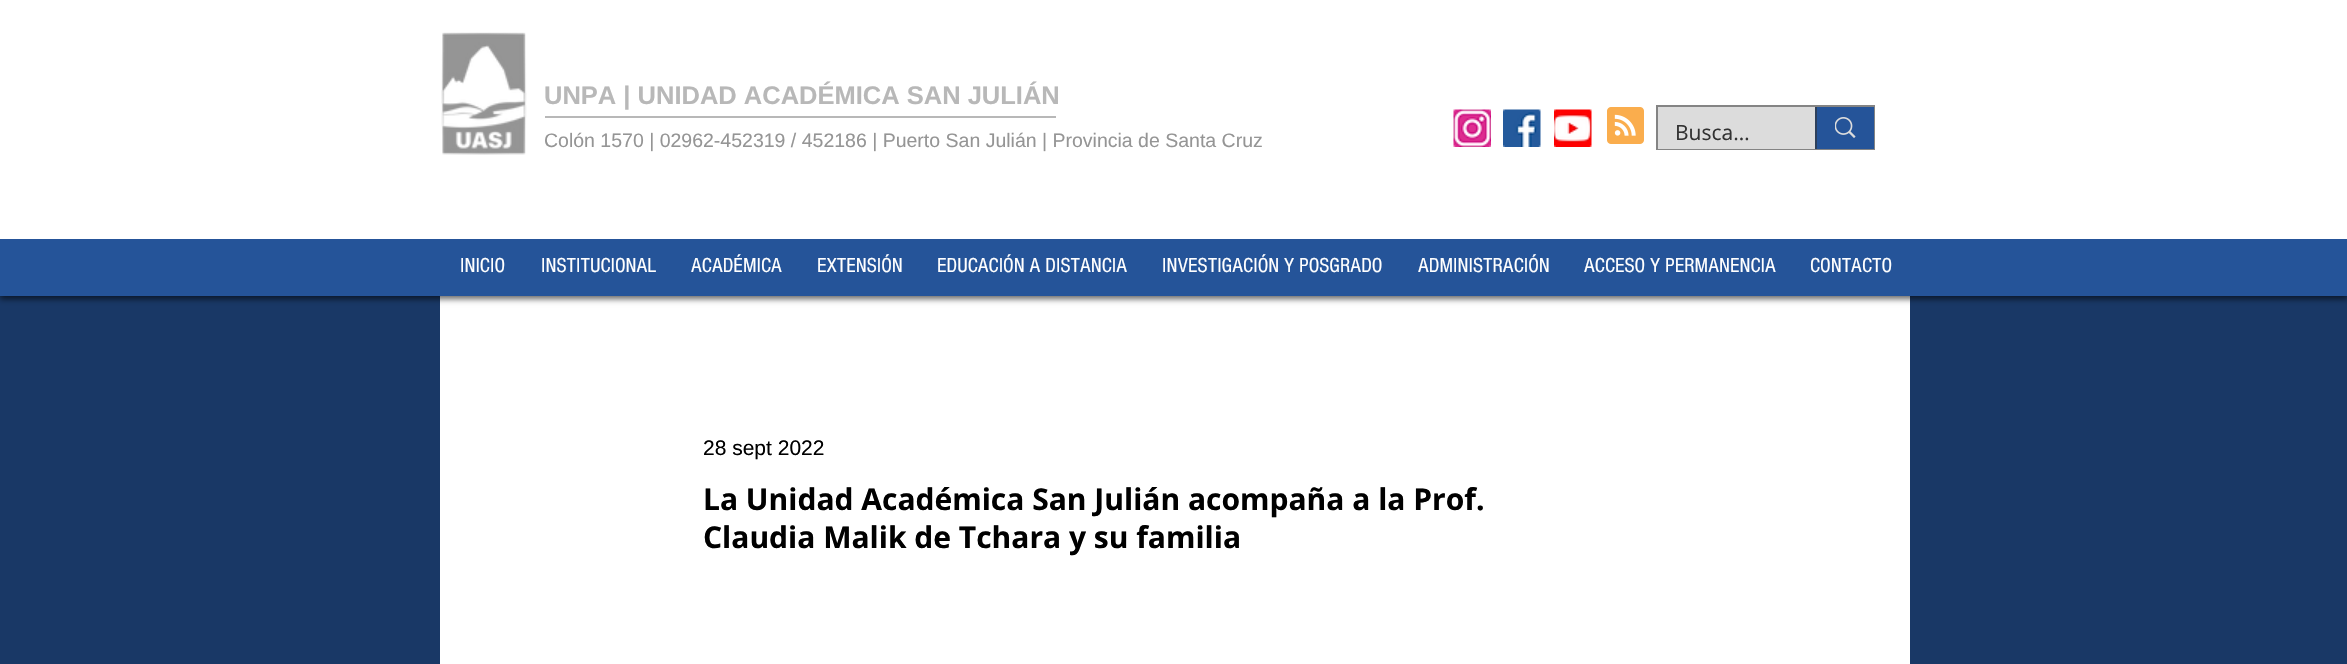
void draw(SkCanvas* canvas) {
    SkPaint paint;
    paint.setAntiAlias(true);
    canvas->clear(0xFF193866);
    paint.setColor(0xFFFFFFFF);
    canvas->drawRect(SkRect::MakeXYWH(440, 296, 1470, 368), paint);
    paint.setColor(0x99000000);
    paint.setMaskFilter(SkMaskFilter::MakeBlur(kNormal_SkBlurStyle, 3));
    canvas->drawRect(SkRect::MakeXYWH(0, 3, 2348, 296), paint);
    paint.setMaskFilter(nullptr);
    paint.setColor(0xFFFFFFFF);
    canvas->drawRect(SkRect::MakeXYWH(0, 0, 2347, 239), paint);
    canvas->drawImageRect(SkImages::DeferredFromEncodedData(SkData::MakeFromFileName("img1.png")), SkRect::MakeXYWH(441, 32, 86, 123), SkSamplingOptions());
    SkFont font1(fontMgr->matchFamilyStyle("Liberation Sans", SkFontStyle::Bold()), 25.5f);
    font1.setSubpixel(true);
    paint.setColor(0xFFB8B8B8);
    canvas->drawString("UNPA | UNIDAD ACADÉMICA SAN JULIÁN", 544, 104, font1, paint);
    canvas->drawRect(SkRect::MakeXYWH(545, 116, 511, 2), paint);
    canvas->drawImageRect(SkImages::DeferredFromEncodedData(SkData::MakeFromFileName("img2.png")), SkRect::MakeXYWH(1453, 109, 38, 38), SkSamplingOptions());
    canvas->drawImageRect(SkImages::DeferredFromEncodedData(SkData::MakeFromFileName("img3.png")), SkRect::MakeXYWH(1503, 109, 38, 38), SkSamplingOptions());
    canvas->drawImageRect(SkImages::DeferredFromEncodedData(SkData::MakeFromFileName("img4.png")), SkRect::MakeXYWH(1554, 109, 38, 38), SkSamplingOptions());
    canvas->drawImageRect(SkImages::DeferredFromEncodedData(SkData::MakeFromFileName("img5.png")), SkRect::MakeXYWH(1607, 107, 37, 37), SkSamplingOptions());
    SkFont font2(fontMgr->matchFamilyStyle("Liberation Sans", SkFontStyle::Normal()), 19.5f);
    font2.setSubpixel(true);
    paint.setColor(0xFF959595);
    canvas->drawString("Colón 1570 | 02962-452319 / 452186 | Puerto San Julián | Provincia de Santa Cruz", 544, 147, font2, paint);
    paint.setStyle(SkPaint::kStroke_Style);
    paint.setStrokeWidth(2);
    paint.setColor(0xFF848484);
    canvas->drawRect(SkRect::MakeXYWH(1657, 106, 217, 43), paint);
    paint.setStyle(SkPaint::kFill_Style);
    paint.setColor(0xFFDCDCDC);
    canvas->drawRect(SkRect::MakeXYWH(1658, 107, 157, 42), paint);
    SkFont font3(fontMgr->matchFamilyStyle("Open Sans", SkFontStyle::Normal()), 21);
    font3.setSubpixel(true);
    paint.setColor(0xFF323232);
    canvas->drawString("Busca…", 1675, 140, font3, paint);
    paint.setColor(0xFF255499);
    canvas->drawRect(SkRect::MakeXYWH(1817, 107, 57, 42), paint);
    paint.setColor(0xFF2D405B);
    canvas->drawRect(SkRect::MakeXYWH(1815, 107, 2, 42), paint);
    canvas->drawImageRect(SkImages::DeferredFromEncodedData(SkData::MakeFromFileName("img6.png")), SkRect::MakeXYWH(1835, 117, 21, 21), SkSamplingOptions());
    paint.setColor(0xFF255499);
    canvas->drawRect(SkRect::MakeXYWH(0, 239, 2347, 57), paint);
    SkFont font4(fontMgr->matchFamilyStyle("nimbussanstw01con", SkFontStyle::Normal()), 21);
    font4.setSubpixel(true);
    paint.setColor(0xFFFFFFFF);
    canvas->drawString("INICIO", 460, 272, font4, paint);
    canvas->drawString("INSTITUCIONAL", 541, 272, font4, paint);
    canvas->drawString("ACADÉMICA", 691, 272, font4, paint);
    canvas->drawString("EXTENSIÓN", 817, 272, font4, paint);
    canvas->drawString("EDUCACIÓN A DISTANCIA", 937, 272, font4, paint);
    canvas->drawString("INVESTIGACIÓN Y POSGRADO", 1162, 272, font4, paint);
    canvas->drawString("ADMINISTRACIÓN", 1418, 272, font4, paint);
    canvas->drawString("ACCESO Y PERMANENCIA", 1584, 272, font4, paint);
    canvas->drawString("CONTACTO", 1810, 272, font4, paint);
    SkFont font5(fontMgr->matchFamilyStyle("Liberation Sans", SkFontStyle::Normal()), 21);
    font5.setSubpixel(true);
    paint.setColor(0xFF000000);
    canvas->drawString("28 sept 2022", 703, 455, font5, paint);
    SkFont font6(fontMgr->matchFamilyStyle("Open Sans", SkFontStyle::Bold()), 30);
    font6.setSubpixel(true);
    canvas->drawString("La Unidad Académica San Julián acompaña a la Prof.", 703, 510, font6, paint);
    canvas->drawString("Claudia Malik de Tchara y su familia", 703, 548, font6, paint);
}
